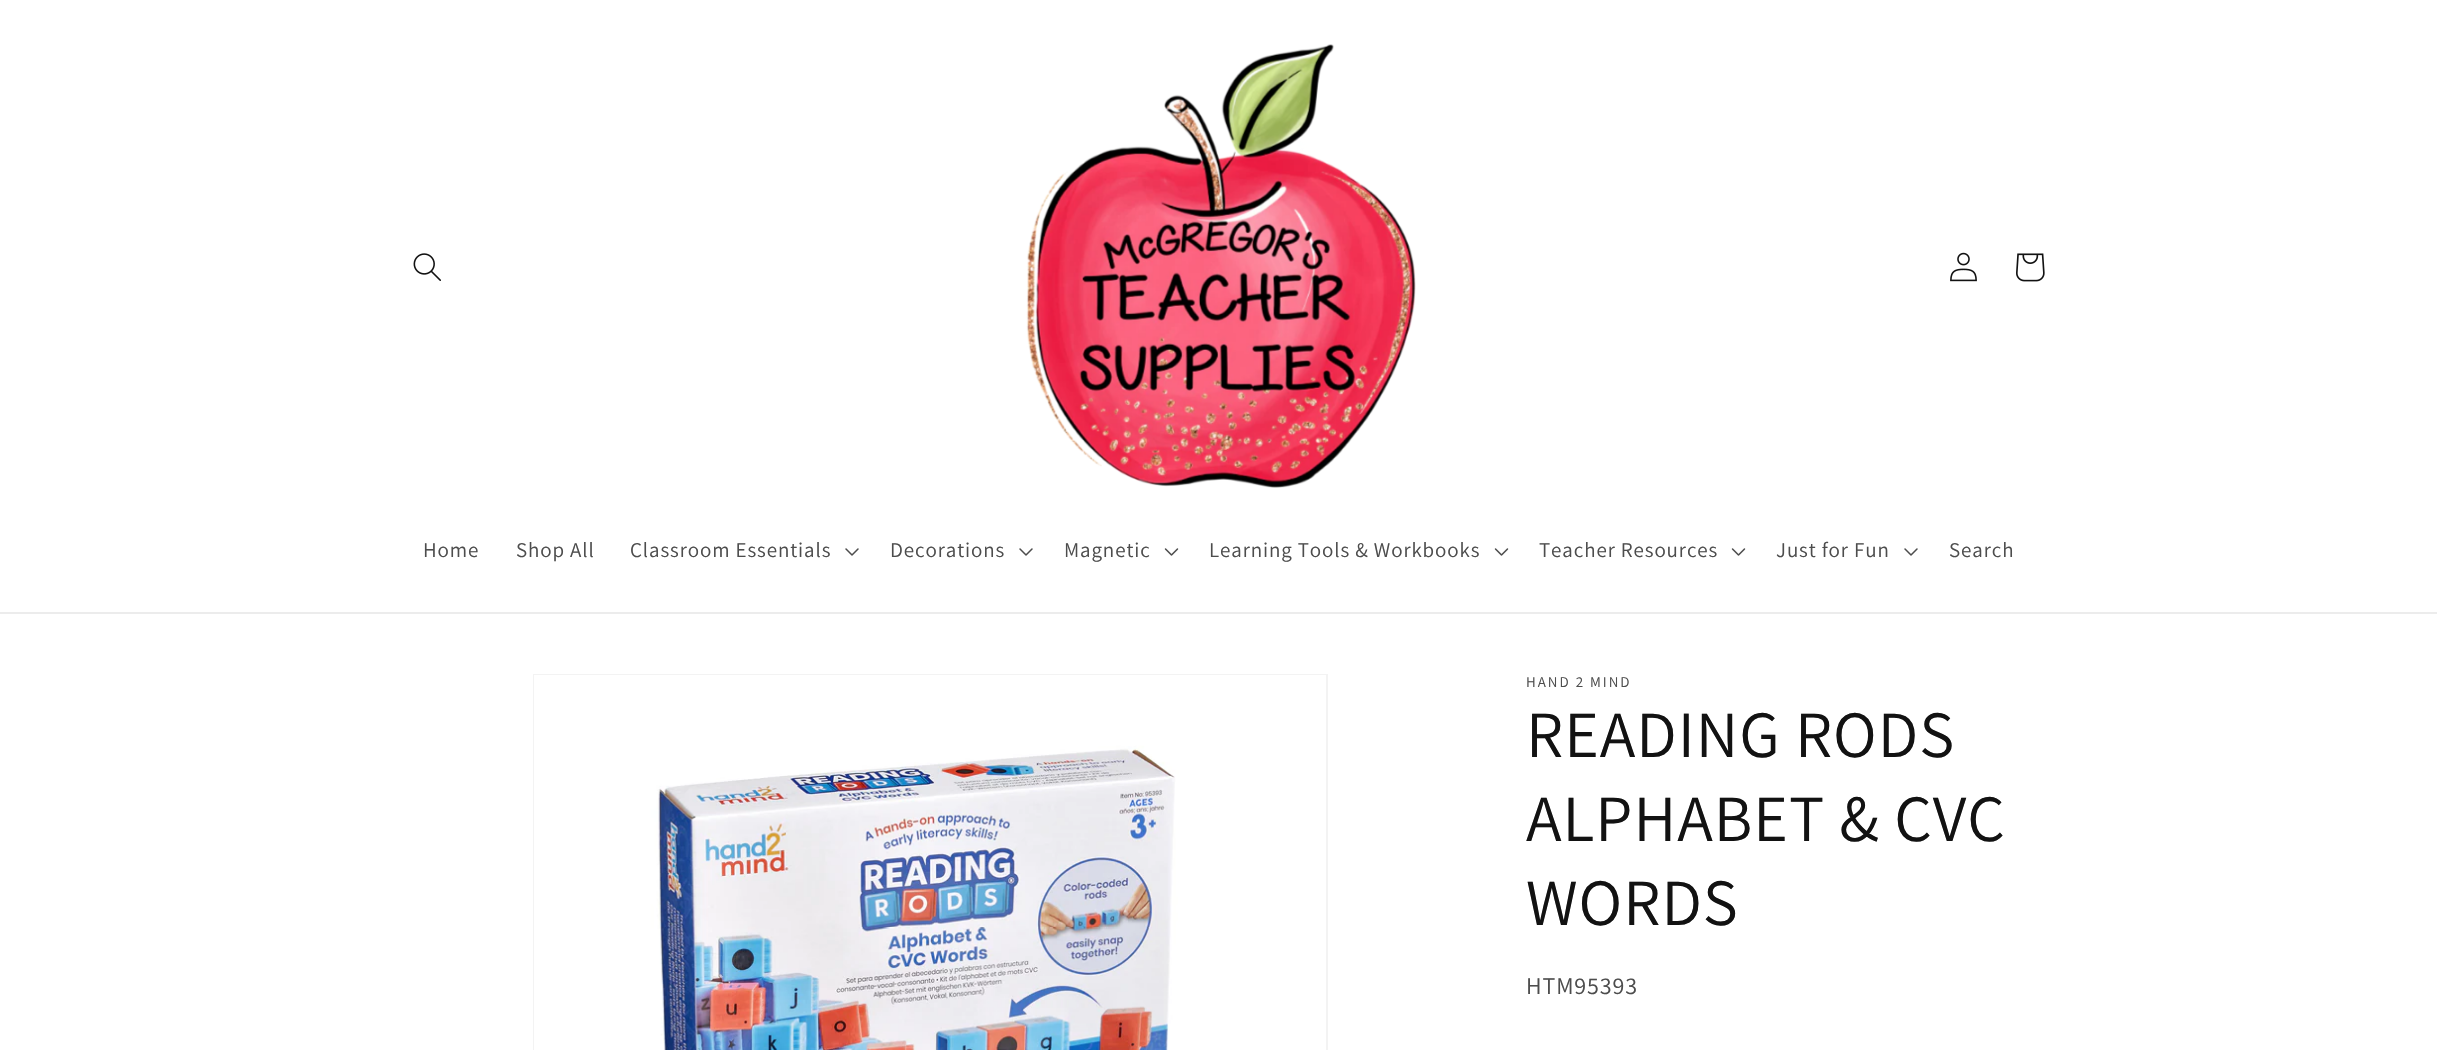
void draw(SkCanvas* canvas) {
    SkPaint paint;
    paint.setAntiAlias(true);
    auto spacedText = [&](const char* s, float x, float y, const SkFont& font, const SkPaint& ink, float letter, float word) {
        std::vector<SkGlyphID> glyphs(font.countText(s, strlen(s), SkTextEncoding::kUTF8));
        std::vector<float> xs(glyphs.size());
        font.textToGlyphs(s, strlen(s), SkTextEncoding::kUTF8, glyphs);
        font.getXPos(glyphs, xs, x);
        float extra = 0;
        for (size_t i = 0; i < glyphs.size(); i++) {
            xs[i] += extra;
            extra += letter + word * (glyphs[i] == font.unicharToGlyph(' '));
        }
        canvas->drawTextBlob(SkTextBlob::MakeFromPosHGlyphs(glyphs, xs, y, font), 0, 0, ink);
    };
    canvas->clear(0xFFFFFFFF);
    paint.setColor(0xFFECECEC);
    canvas->drawRect(SkRect::MakeXYWH(0, 612, 2437, 2), paint);
    canvas->drawImageRect(SkImages::DeferredFromEncodedData(SkData::MakeFromFileName("img1.png")), SkRect::MakeXYWH(413, 253, 28, 28), SkSamplingOptions());
    canvas->drawImageRect(SkImages::DeferredFromEncodedData(SkData::MakeFromFileName("img2.png")), SkRect::MakeXYWH(1026, 44, 390, 444), SkSamplingOptions());
    canvas->drawImageRect(SkImages::DeferredFromEncodedData(SkData::MakeFromFileName("img3.png")), SkRect::MakeXYWH(1950, 252, 27, 30), SkSamplingOptions());
    canvas->drawImageRect(SkImages::DeferredFromEncodedData(SkData::MakeFromFileName("img4.png")), SkRect::MakeXYWH(2016, 253, 29, 29), SkSamplingOptions());
    SkFont font1(fontMgr->matchFamilyStyle("Assistant", SkFontStyle::Normal()), 21);
    font1.setSubpixel(true);
    paint.setColor(0xFF4D4D4D);
    spacedText("Home", 423, 557, font1, paint, 0.9f, 0);
    spacedText("Shop All", 516, 557, font1, paint, 0.9f, 0);
    spacedText("Classroom Essentials", 630, 557, font1, paint, 0.9f, 0);
    canvas->drawImageRect(SkImages::DeferredFromEncodedData(SkData::MakeFromFileName("img5.png")), SkRect::MakeXYWH(845, 548, 14, 8), SkSamplingOptions());
    spacedText("Decorations", 890, 557, font1, paint, 0.9f, 0);
    canvas->drawImageRect(SkImages::DeferredFromEncodedData(SkData::MakeFromFileName("img5.png")), SkRect::MakeXYWH(1019, 548, 14, 8), SkSamplingOptions());
    spacedText("Magnetic", 1064, 557, font1, paint, 0.9f, 0);
    canvas->drawImageRect(SkImages::DeferredFromEncodedData(SkData::MakeFromFileName("img6.png")), SkRect::MakeXYWH(1164, 548, 15, 8), SkSamplingOptions());
    spacedText("Learning Tools & Workbooks", 1209, 557, font1, paint, 0.9f, 0);
    canvas->drawImageRect(SkImages::DeferredFromEncodedData(SkData::MakeFromFileName("img6.png")), SkRect::MakeXYWH(1494, 548, 15, 8), SkSamplingOptions());
    spacedText("Teacher Resources", 1539, 557, font1, paint, 0.9f, 0);
    canvas->drawImageRect(SkImages::DeferredFromEncodedData(SkData::MakeFromFileName("img6.png")), SkRect::MakeXYWH(1731, 548, 15, 8), SkSamplingOptions());
    spacedText("Just for Fun", 1776, 557, font1, paint, 0.9f, 0);
    canvas->drawImageRect(SkImages::DeferredFromEncodedData(SkData::MakeFromFileName("img5.png")), SkRect::MakeXYWH(1904, 548, 14, 8), SkSamplingOptions());
    spacedText("Search", 1949, 557, font1, paint, 0.9f, 0);
    paint.setStyle(SkPaint::kStroke_Style);
    paint.setStrokeWidth(2);
    paint.setColor(0xFFF3F3F3);
    canvas->drawRect(SkRect::MakeXYWH(534, 675, 793, 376), paint);
    canvas->drawImageRect(SkImages::DeferredFromEncodedData(SkData::MakeFromFileName("img7.png")), SkRect::MakeXYWH(534, 675, 792, 375), SkSamplingOptions());
    SkFont font2(fontMgr->matchFamilyStyle("Assistant", SkFontStyle::Normal()), 15);
    font2.setSubpixel(true);
    paint.setStyle(SkPaint::kFill_Style);
    paint.setColor(0xFF4D4D4D);
    spacedText("HAND 2 MIND", 1526, 687, font2, paint, 2, 0);
    SkFont font3(fontMgr->matchFamilyStyle("Assistant", SkFontStyle::Normal()), 66);
    font3.setSubpixel(true);
    paint.setColor(0xFF121212);
    spacedText("READING RODS", 1526, 757, font3, paint, 1, 0);
    spacedText("ALPHABET & CVC", 1526, 841, font3, paint, 1, 0);
    spacedText("WORDS", 1526, 925, font3, paint, 1, 0);
    SkFont font4(fontMgr->matchFamilyStyle("Assistant", SkFontStyle::Normal()), 24);
    font4.setSubpixel(true);
    paint.setColor(0xFF4D4D4D);
    spacedText("HTM95393", 1526, 994, font4, paint, 0.9f, 0);
}
